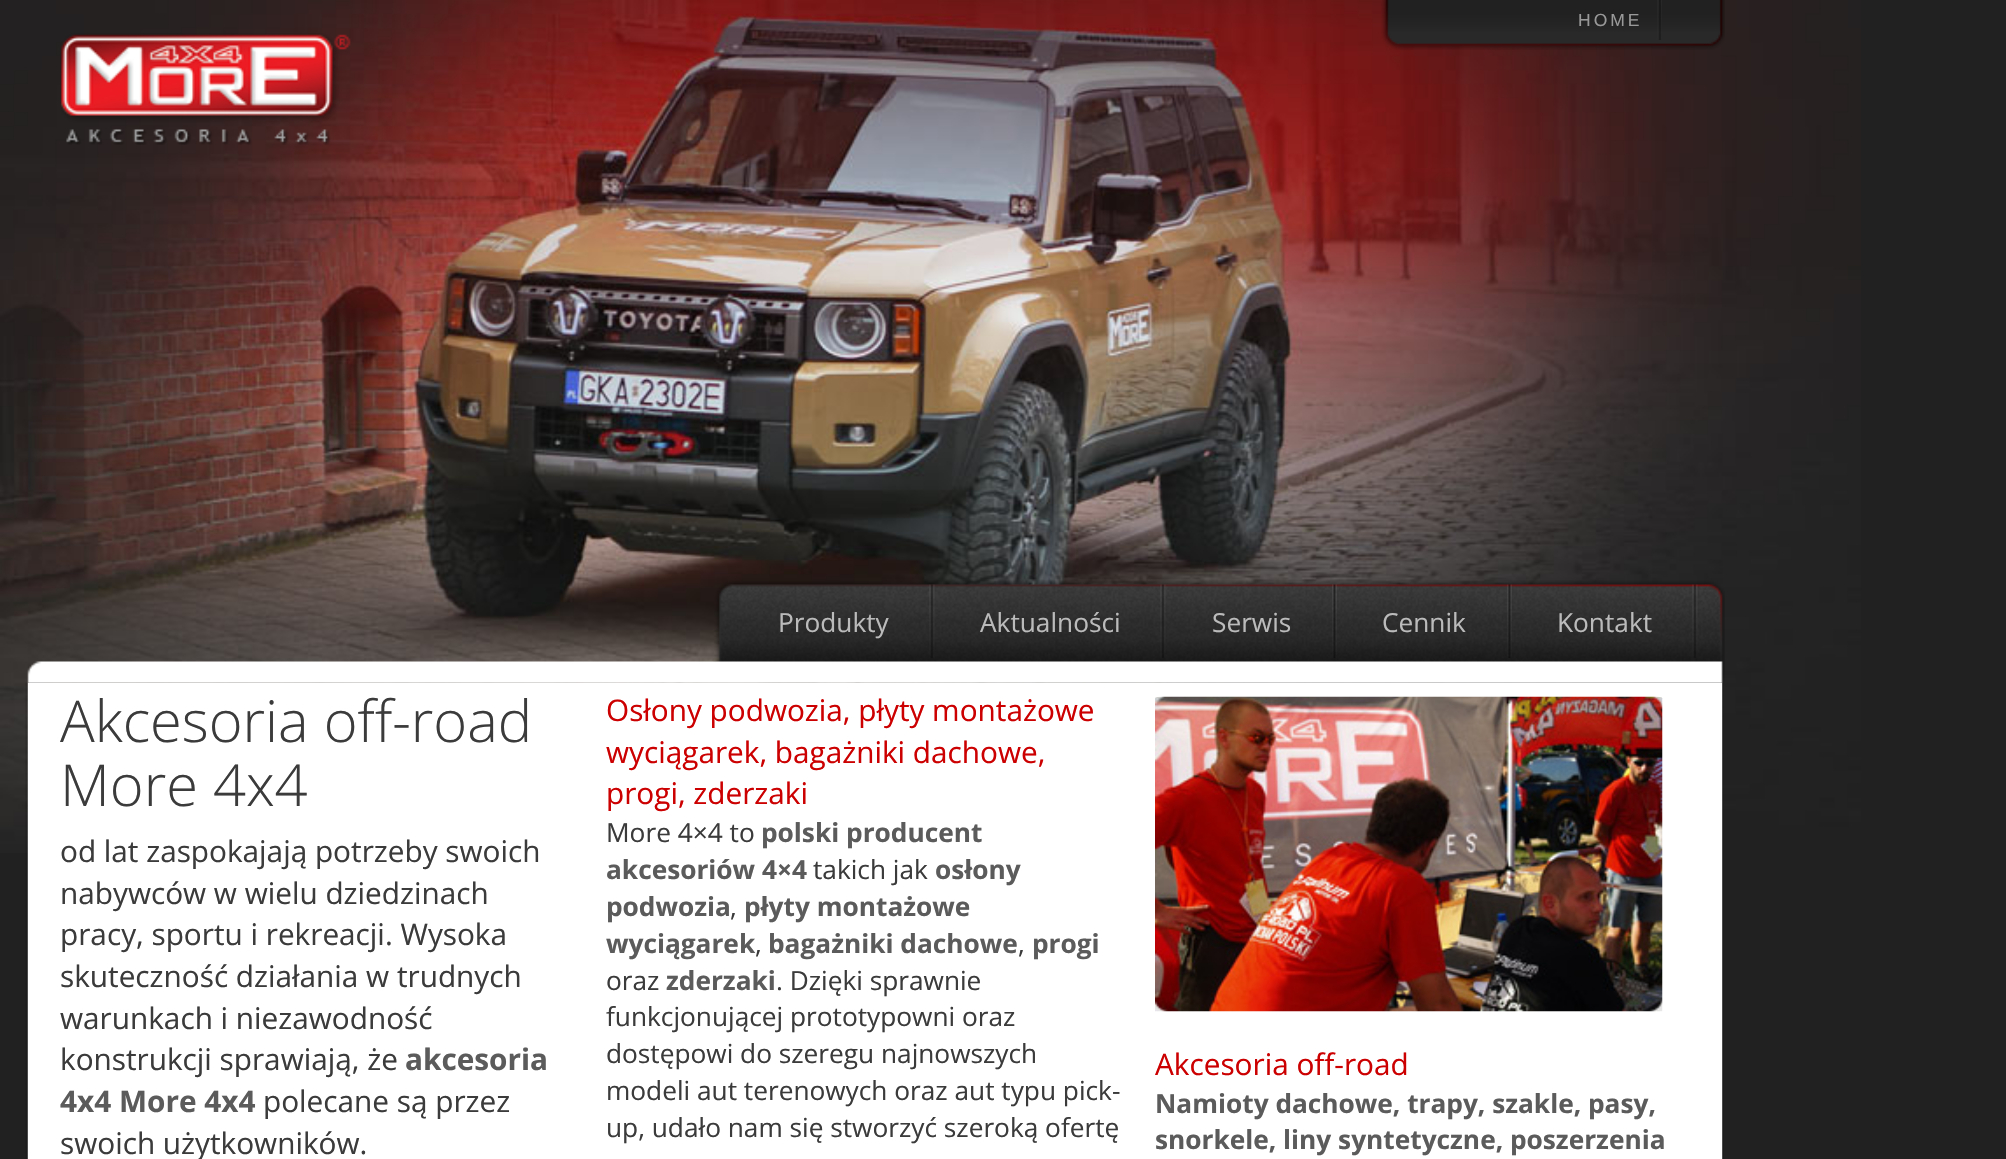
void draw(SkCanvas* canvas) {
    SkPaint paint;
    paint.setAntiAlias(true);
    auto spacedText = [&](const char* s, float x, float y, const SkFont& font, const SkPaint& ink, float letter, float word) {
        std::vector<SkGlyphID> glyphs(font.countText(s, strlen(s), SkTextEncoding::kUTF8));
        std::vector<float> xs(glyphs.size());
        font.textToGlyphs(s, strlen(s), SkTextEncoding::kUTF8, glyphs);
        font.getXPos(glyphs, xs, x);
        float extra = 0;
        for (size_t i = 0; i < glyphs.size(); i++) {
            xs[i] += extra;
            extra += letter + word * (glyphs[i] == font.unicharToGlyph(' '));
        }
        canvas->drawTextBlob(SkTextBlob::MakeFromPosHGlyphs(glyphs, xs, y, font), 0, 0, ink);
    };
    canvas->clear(0xFF212121);
    canvas->drawImageRect(SkImages::DeferredFromEncodedData(SkData::MakeFromFileName("img1.png")), SkRect::MakeXYWH(0, 0, 1861, 853), SkSamplingOptions());
    canvas->drawImageRect(SkImages::DeferredFromEncodedData(SkData::MakeFromFileName("img2.png")), SkRect::MakeXYWH(1381, 0, 344, 50), SkSamplingOptions());
    SkFont font1(fontMgr->matchFamilyStyle("Liberation Sans", SkFontStyle::Normal()), 17.5f);
    font1.setSubpixel(true);
    paint.setColor(0xFF999999);
    spacedText("HOME", 1578, 26, font1, paint, 3, 0);
    canvas->drawImageRect(SkImages::DeferredFromEncodedData(SkData::MakeFromFileName("img3.png")), SkRect::MakeXYWH(1657, 0, 5, 40), SkSamplingOptions());
    canvas->drawImageRect(SkImages::DeferredFromEncodedData(SkData::MakeFromFileName("img4.png")), SkRect::MakeXYWH(60, 33, 291, 112), SkSamplingOptions());
    canvas->drawImageRect(SkImages::DeferredFromEncodedData(SkData::MakeFromFileName("img5.png")), SkRect::MakeXYWH(27, 580, 1698, 103), SkSamplingOptions());
    canvas->drawImageRect(SkImages::DeferredFromEncodedData(SkData::MakeFromFileName("img6.png")), SkRect::MakeXYWH(929, 584, 6, 74), SkSamplingOptions());
    SkFont font2(fontMgr->matchFamilyStyle("Open Sans", SkFontStyle::Normal()), 26.25f);
    font2.setSubpixel(true);
    paint.setColor(0xFFBBBBBB);
    canvas->drawString("Produkty", 778, 632, font2, paint);
    canvas->drawImageRect(SkImages::DeferredFromEncodedData(SkData::MakeFromFileName("img7.png")), SkRect::MakeXYWH(1160, 584, 6, 74), SkSamplingOptions());
    canvas->drawString("Aktualności", 980, 632, font2, paint);
    canvas->drawImageRect(SkImages::DeferredFromEncodedData(SkData::MakeFromFileName("img8.png")), SkRect::MakeXYWH(1332, 584, 5, 74), SkSamplingOptions());
    canvas->drawString("Serwis", 1212, 632, font2, paint);
    canvas->drawImageRect(SkImages::DeferredFromEncodedData(SkData::MakeFromFileName("img9.png")), SkRect::MakeXYWH(1507, 584, 5, 74), SkSamplingOptions());
    canvas->drawString("Cennik", 1382, 632, font2, paint);
    canvas->drawImageRect(SkImages::DeferredFromEncodedData(SkData::MakeFromFileName("img10.png")), SkRect::MakeXYWH(1692, 584, 6, 74), SkSamplingOptions());
    canvas->drawString("Kontakt", 1557, 632, font2, paint);
    canvas->drawImageRect(SkImages::DeferredFromEncodedData(SkData::MakeFromFileName("img11.png")), SkRect::MakeXYWH(25, 682, 1699, 477), SkSamplingOptions());
    paint.setColor(0xFFFFFFFF);
    canvas->drawRect(SkRect::MakeXYWH(28, 683, 1694, 476), paint);
    SkFont font3(fontMgr->matchFamilyStyle("Open Sans", SkFontStyle(300, SkFontStyle::kNormal_Width, SkFontStyle::kUpright_Slant)), 57.75f);
    font3.setSubpixel(true);
    paint.setColor(0xFF3B3B3B);
    canvas->drawString("Akcesoria off-road", 60, 742, font3, paint);
    canvas->drawString("More 4x4", 60, 806, font3, paint);
    SkFont font4(fontMgr->matchFamilyStyle("Open Sans", SkFontStyle::Normal()), 29.75f);
    font4.setSubpixel(true);
    canvas->drawString("od lat zaspokajają potrzeby swoich", 60, 862, font4, paint);
    canvas->drawString("nabywców w wielu dziedzinach", 60, 904, font4, paint);
    canvas->drawString("pracy, sportu i rekreacji. Wysoka", 60, 945, font4, paint);
    canvas->drawString("skuteczność działania w trudnych", 60, 987, font4, paint);
    canvas->drawString("warunkach i niezawodność", 60, 1029, font4, paint);
    canvas->drawString("konstrukcji sprawiają, że", 60, 1070, font4, paint);
    SkFont font5(fontMgr->matchFamilyStyle("Open Sans", SkFontStyle::Bold()), 29.75f);
    font5.setSubpixel(true);
    paint.setColor(0xFF5B5B5B);
    canvas->drawString("akcesoria", 405, 1070, font5, paint);
    canvas->drawString("4x4 More 4x4", 60, 1112, font5, paint);
    paint.setColor(0xFF3B3B3B);
    canvas->drawString("polecane są przez", 263, 1112, font4, paint);
    canvas->drawString("swoich użytkowników.", 60, 1154, font4, paint);
    paint.setColor(0xFFCC0000);
    canvas->drawString("Osłony podwozia, płyty montażowe", 606, 721, font4, paint);
    canvas->drawString("wyciągarek, bagażniki dachowe,", 606, 763, font4, paint);
    canvas->drawString("progi, zderzaki", 606, 804, font4, paint);
    paint.setColor(0xFF3B3B3B);
    canvas->drawString("More 4×4 to", 606, 842, font2, paint);
    SkFont font6(fontMgr->matchFamilyStyle("Open Sans", SkFontStyle::Bold()), 26.25f);
    font6.setSubpixel(true);
    paint.setColor(0xFF5B5B5B);
    canvas->drawString("polski producent", 761, 842, font6, paint);
    canvas->drawString("akcesoriów 4×4", 606, 879, font6, paint);
    paint.setColor(0xFF3B3B3B);
    canvas->drawString("takich jak", 813, 879, font2, paint);
    paint.setColor(0xFF5B5B5B);
    canvas->drawString("osłony", 935, 879, font6, paint);
    canvas->drawString("podwozia", 606, 916, font6, paint);
    paint.setColor(0xFF3B3B3B);
    canvas->drawString(",", 730, 916, font2, paint);
    paint.setColor(0xFF5B5B5B);
    canvas->drawString("płyty montażowe", 744, 916, font6, paint);
    canvas->drawString("wyciągarek", 606, 953, font6, paint);
    paint.setColor(0xFF3B3B3B);
    canvas->drawString(",", 755, 953, font2, paint);
    paint.setColor(0xFF5B5B5B);
    canvas->drawString("bagażniki dachowe", 768, 953, font6, paint);
    paint.setColor(0xFF3B3B3B);
    canvas->drawString(",", 1018, 953, font2, paint);
    paint.setColor(0xFF5B5B5B);
    canvas->drawString("progi", 1032, 953, font6, paint);
    paint.setColor(0xFF3B3B3B);
    canvas->drawString("oraz", 606, 990, font2, paint);
    paint.setColor(0xFF5B5B5B);
    canvas->drawString("zderzaki", 666, 990, font6, paint);
    paint.setColor(0xFF3B3B3B);
    canvas->drawString(". Dzięki sprawnie", 776, 990, font2, paint);
    canvas->drawString("funkcjonującej prototypowni oraz", 606, 1026, font2, paint);
    canvas->drawString("dostępowi do szeregu najnowszych", 606, 1063, font2, paint);
    canvas->drawString("modeli aut terenowych oraz aut typu pick-", 606, 1100, font2, paint);
    canvas->drawString("up, udało nam się stworzyć szeroką ofertę", 606, 1137, font2, paint);
    canvas->drawImageRect(SkImages::DeferredFromEncodedData(SkData::MakeFromFileName("img12.png")), SkRect::MakeXYWH(1155, 696, 508, 316), SkSamplingOptions());
    paint.setColor(0xFFCC0000);
    canvas->drawString("Akcesoria off-road", 1155, 1075, font4, paint);
    paint.setColor(0xFF5B5B5B);
    canvas->drawString("Namioty dachowe, trapy, szakle, pasy,", 1155, 1113, font6, paint);
    canvas->drawString("snorkele, liny syntetyczne, poszerzenia", 1155, 1149, font6, paint);
}
